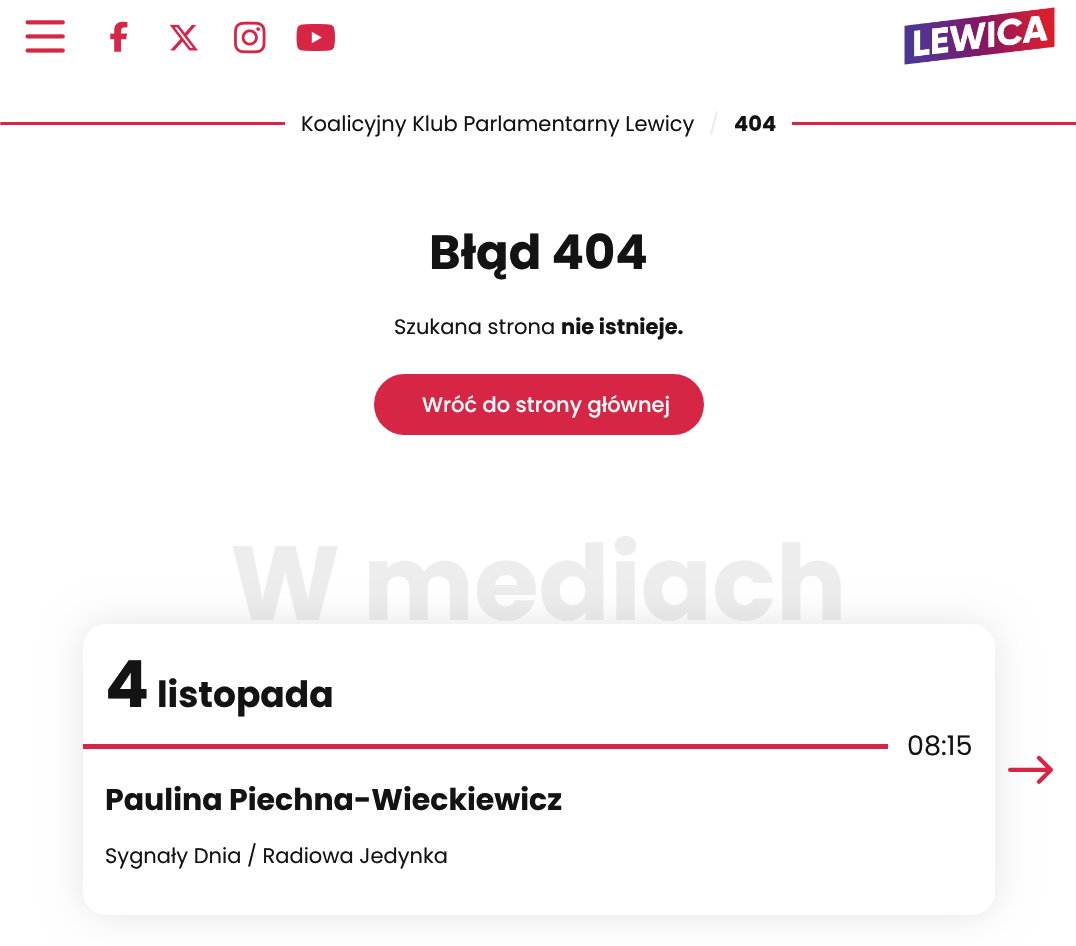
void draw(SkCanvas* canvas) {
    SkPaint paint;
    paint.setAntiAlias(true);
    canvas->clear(0xFFFFFFFF);
    canvas->drawImageRect(SkImages::DeferredFromEncodedData(SkData::MakeFromFileName("img1.png")), SkRect::MakeXYWH(25, 20, 40, 33), SkSamplingOptions());
    canvas->drawImageRect(SkImages::DeferredFromEncodedData(SkData::MakeFromFileName("img2.png")), SkRect::MakeXYWH(110, 21, 18, 31), SkSamplingOptions());
    canvas->drawImageRect(SkImages::DeferredFromEncodedData(SkData::MakeFromFileName("img3.png")), SkRect::MakeXYWH(169, 24, 29, 27), SkSamplingOptions());
    canvas->drawImageRect(SkImages::DeferredFromEncodedData(SkData::MakeFromFileName("img4.png")), SkRect::MakeXYWH(234, 21, 32, 33), SkSamplingOptions());
    canvas->drawImageRect(SkImages::DeferredFromEncodedData(SkData::MakeFromFileName("img5.png")), SkRect::MakeXYWH(296, 24, 39, 27), SkSamplingOptions());
    canvas->drawImageRect(SkImages::DeferredFromEncodedData(SkData::MakeFromFileName("img6.png")), SkRect::MakeXYWH(904, 7, 151, 58), SkSamplingOptions());
    paint.setColor(0xFFD62545);
    canvas->drawRoundRect(SkRect::MakeXYWH(0, 122, 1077, 3), 1.5f, 1.5f, paint);
    paint.setColor(0xFFFFFFFF);
    canvas->drawRect(SkRect::MakeXYWH(285, 122, 507, 3), paint);
    SkFont font1(fontMgr->matchFamilyStyle("Poppins", SkFontStyle::Normal()), 21);
    font1.setSubpixel(true);
    paint.setColor(0xFF141313);
    canvas->drawString("Koalicyjny Klub Parlamentarny Lewicy", 301, 131, font1, paint);
    paint.setColor(0xFFEDEDED);
    canvas->drawString("/", 709, 131, font1, paint);
    SkFont font2(fontMgr->matchFamilyStyle("Poppins", SkFontStyle::Bold()), 21);
    font2.setSubpixel(true);
    paint.setColor(0xFF141313);
    canvas->drawString("404", 734, 131, font2, paint);
    SkFont font3(fontMgr->matchFamilyStyle("Poppins", SkFontStyle::Bold()), 48);
    font3.setSubpixel(true);
    canvas->drawString("Błąd 404", 429, 269, font3, paint);
    canvas->drawString("Szukana strona", 394, 334, font1, paint);
    canvas->drawString("nie istnieje.", 561, 334, font2, paint);
    paint.setColor(0xFFD62545);
    canvas->drawRoundRect(SkRect::MakeXYWH(374, 374, 330, 61), 30.5f, 30.5f, paint);
    SkFont font4(fontMgr->matchFamilyStyle("Poppins", SkFontStyle(500, SkFontStyle::kNormal_Width, SkFontStyle::kUpright_Slant)), 21);
    font4.setSubpixel(true);
    paint.setColor(0xFFFFFFFF);
    canvas->drawString("Wróć do strony głównej", 422, 412, font4, paint);
    SkFont font5(fontMgr->matchFamilyStyle("Poppins", SkFontStyle::Bold()), 105);
    font5.setSubpixel(true);
    paint.setColor(0xFFEDEDED);
    canvas->drawString("W mediach", 230, 620, font5, paint);
    paint.setColor(0x1A000000);
    paint.setMaskFilter(SkMaskFilter::MakeBlur(kNormal_SkBlurStyle, 19));
    canvas->drawRoundRect(SkRect::MakeXYWH(83, 624, 912, 291), 23, 23, paint);
    paint.setMaskFilter(nullptr);
    paint.setColor(0xFFFFFFFF);
    canvas->drawRoundRect(SkRect::MakeXYWH(83, 624, 912, 291), 23, 23, paint);
    SkFont font6(fontMgr->matchFamilyStyle("Poppins", SkFontStyle::Bold()), 65);
    font6.setSubpixel(true);
    paint.setColor(0xFF141313);
    canvas->drawString("4", 105, 707, font6, paint);
    SkFont font7(fontMgr->matchFamilyStyle("Poppins", SkFontStyle::Bold()), 36);
    font7.setSubpixel(true);
    canvas->drawString("listopada", 157, 707, font7, paint);
    paint.setColor(0xFFD62545);
    canvas->drawRect(SkRect::MakeXYWH(83, 744, 805, 5), paint);
    SkFont font8(fontMgr->matchFamilyStyle("Poppins", SkFontStyle::Normal()), 27);
    font8.setSubpixel(true);
    paint.setColor(0xFF141313);
    canvas->drawString("08:15", 907, 755, font8, paint);
    SkFont font9(fontMgr->matchFamilyStyle("Poppins", SkFontStyle::Bold()), 30);
    font9.setSubpixel(true);
    canvas->drawString("Paulina Piechna-Wieckiewicz", 105, 810, font9, paint);
    canvas->drawString("Sygnały Dnia / Radiowa Jedynka", 105, 863, font1, paint);
    canvas->drawImageRect(SkImages::DeferredFromEncodedData(SkData::MakeFromFileName("img7.png")), SkRect::MakeXYWH(1008, 755, 45, 29), SkSamplingOptions());
}
